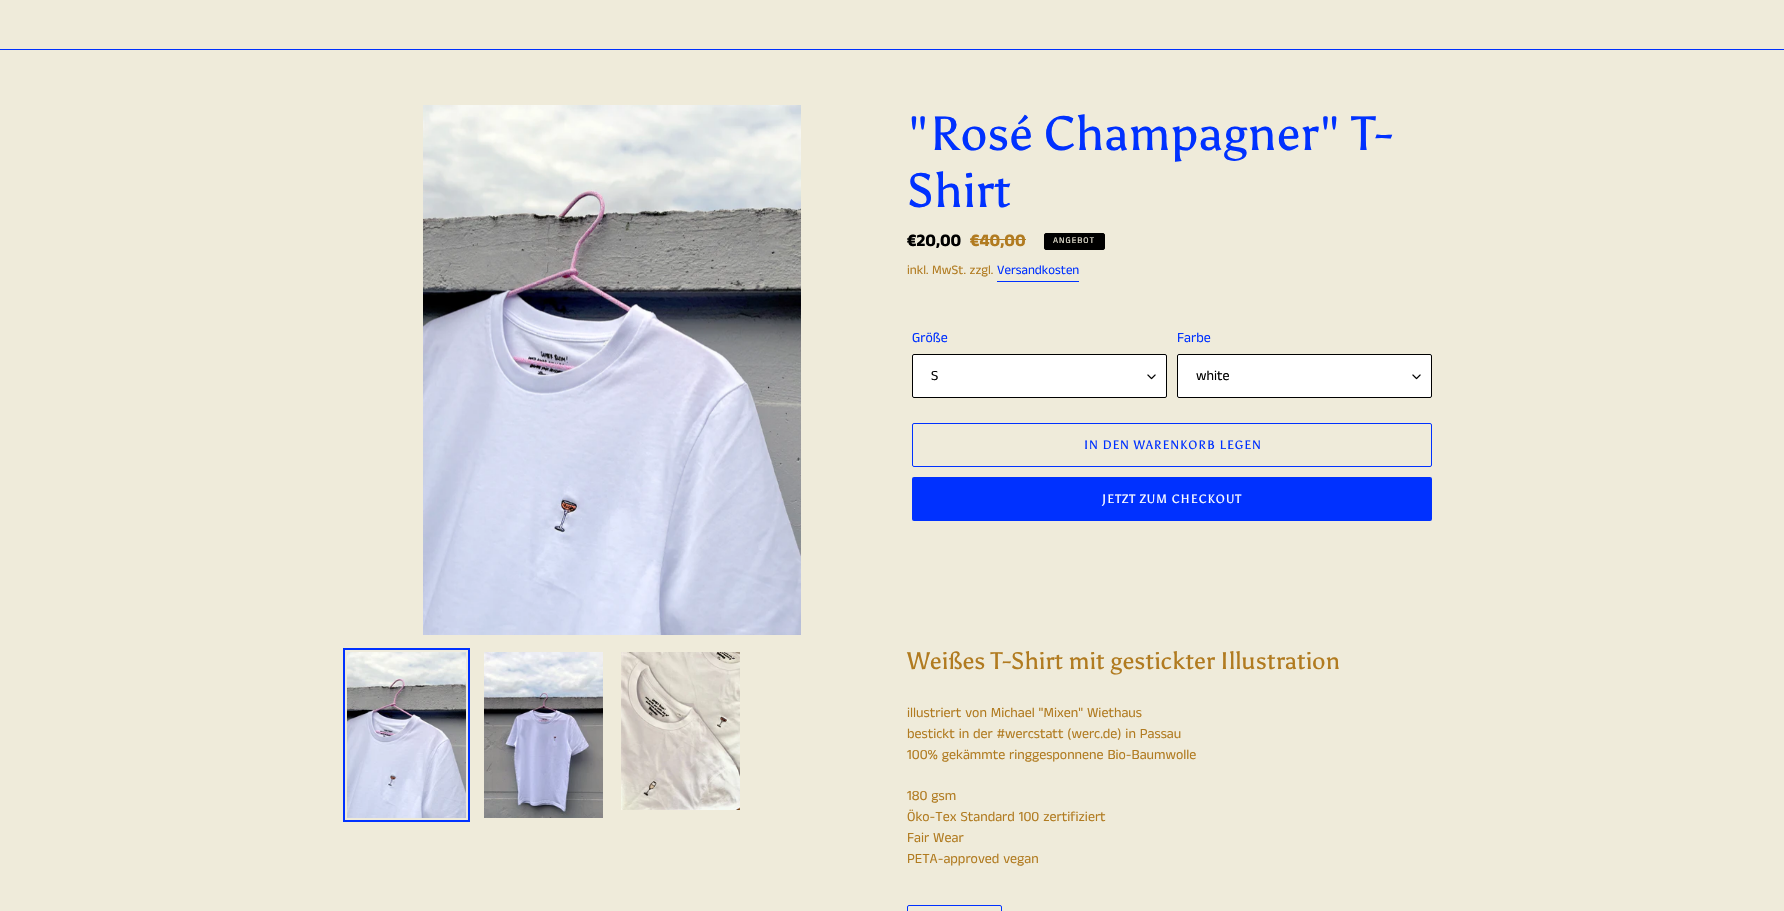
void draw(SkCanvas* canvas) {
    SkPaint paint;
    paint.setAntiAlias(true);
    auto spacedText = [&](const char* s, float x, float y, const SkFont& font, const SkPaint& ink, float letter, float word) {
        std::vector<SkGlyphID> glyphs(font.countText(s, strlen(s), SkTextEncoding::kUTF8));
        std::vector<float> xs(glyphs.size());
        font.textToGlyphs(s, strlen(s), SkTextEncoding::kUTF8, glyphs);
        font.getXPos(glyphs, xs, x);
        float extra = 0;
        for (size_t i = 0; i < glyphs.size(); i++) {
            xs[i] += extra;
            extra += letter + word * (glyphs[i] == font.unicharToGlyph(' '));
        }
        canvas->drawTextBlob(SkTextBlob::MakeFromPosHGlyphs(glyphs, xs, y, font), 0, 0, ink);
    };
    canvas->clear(0xFFEFEBDA);
    paint.setColor(0xFF0031FF);
    canvas->drawRect(SkRect::MakeXYWH(0, 49, 1784, 1), paint);
    canvas->drawImageRect(SkImages::DeferredFromEncodedData(SkData::MakeFromFileName("img1.png")), SkRect::MakeXYWH(423, 105, 378, 530), SkSamplingOptions());
    paint.setStyle(SkPaint::kStroke_Style);
    paint.setStrokeWidth(2);
    canvas->drawRect(SkRect::MakeXYWH(344, 649, 125, 172), paint);
    canvas->drawImageRect(SkImages::DeferredFromEncodedData(SkData::MakeFromFileName("img2.png")), SkRect::MakeXYWH(347, 652, 119, 166), SkSamplingOptions());
    canvas->drawImageRect(SkImages::DeferredFromEncodedData(SkData::MakeFromFileName("img3.png")), SkRect::MakeXYWH(484, 652, 119, 166), SkSamplingOptions());
    canvas->drawImageRect(SkImages::DeferredFromEncodedData(SkData::MakeFromFileName("img4.png")), SkRect::MakeXYWH(621, 652, 119, 158), SkSamplingOptions());
    SkFont font1(fontMgr->matchFamilyStyle("Asul", SkFontStyle::Normal()), 48);
    font1.setSubpixel(true);
    paint.setStyle(SkPaint::kFill_Style);
    canvas->drawString("\"Rosé Champagner\" T-", 907, 150, font1, paint);
    canvas->drawString("Shirt", 907, 207, font1, paint);
    SkFont font2(fontMgr->matchFamilyStyle("Anek Tamil", SkFontStyle::Bold()), 17.5f);
    font2.setSubpixel(true);
    paint.setColor(0xFF000000);
    canvas->drawString("€20,00", 907, 246, font2, paint);
    paint.setColor(0xFFB17B20);
    canvas->drawString("€40,00", 970, 246, font2, paint);
    canvas->drawRect(SkRect::MakeXYWH(970, 239, 56, 1), paint);
    paint.setColor(0xFF000000);
    canvas->drawRoundRect(SkRect::MakeXYWH(1044.5f, 233.5f, 60, 16), 1.5f, 1.5f, paint);
    paint.setStyle(SkPaint::kStroke_Style);
    paint.setStrokeWidth(1);
    canvas->drawRoundRect(SkRect::MakeXYWH(1044.5f, 233.5f, 60, 16), 1.5f, 1.5f, paint);
    SkFont font3(fontMgr->matchFamilyStyle("Anek Tamil", SkFontStyle::Normal()), 8.75f);
    font3.setSubpixel(true);
    paint.setStyle(SkPaint::kFill_Style);
    paint.setColor(0xFFEFEBDA);
    spacedText("ANGEBOT", 1053, 243, font3, paint, 1, 0);
    SkFont font4(fontMgr->matchFamilyStyle("Anek Tamil", SkFontStyle::Normal()), 13);
    font4.setSubpixel(true);
    paint.setColor(0xFFB17B20);
    canvas->drawString("inkl. MwSt. zzgl.", 907, 274, font4, paint);
    paint.setColor(0xFF0031FF);
    canvas->drawString("Versandkosten", 997, 274, font4, paint);
    canvas->drawRect(SkRect::MakeXYWH(997, 281, 82, 1), paint);
    SkFont font5(fontMgr->matchFamilyStyle("Anek Tamil", SkFontStyle::Normal()), 14);
    font5.setSubpixel(true);
    canvas->drawString("Größe", 912, 342, font5, paint);
    paint.setColor(0xFFFFFFFF);
    canvas->drawRoundRect(SkRect::MakeXYWH(912, 354, 255, 44), 2, 2, paint);
    canvas->drawImageRect(SkImages::DeferredFromEncodedData(SkData::MakeFromFileName("img5.png")), SkRect::MakeXYWH(1147, 374, 9, 6), SkSamplingOptions());
    paint.setStyle(SkPaint::kStroke_Style);
    paint.setColor(0xFF000000);
    canvas->drawRoundRect(SkRect::MakeXYWH(912.5f, 354.5f, 254, 43), 1.5f, 1.5f, paint);
    paint.setStyle(SkPaint::kFill_Style);
    canvas->drawString("S", 931, 380, font5, paint);
    paint.setColor(0xFF0031FF);
    canvas->drawString("Farbe", 1177, 342, font5, paint);
    paint.setColor(0xFFFFFFFF);
    canvas->drawRoundRect(SkRect::MakeXYWH(1177, 354, 255, 44), 2, 2, paint);
    canvas->drawImageRect(SkImages::DeferredFromEncodedData(SkData::MakeFromFileName("img5.png")), SkRect::MakeXYWH(1412, 374, 9, 6), SkSamplingOptions());
    paint.setStyle(SkPaint::kStroke_Style);
    paint.setColor(0xFF000000);
    canvas->drawRoundRect(SkRect::MakeXYWH(1177.5f, 354.5f, 254, 43), 1.5f, 1.5f, paint);
    paint.setStyle(SkPaint::kFill_Style);
    canvas->drawString("white", 1196, 380, font5, paint);
    paint.setStyle(SkPaint::kStroke_Style);
    paint.setColor(0xFF0031FF);
    canvas->drawRoundRect(SkRect::MakeXYWH(912.5f, 423.5f, 519, 43), 1.5f, 1.5f, paint);
    SkFont font6(fontMgr->matchFamilyStyle("Asul", SkFontStyle::Normal()), 12);
    font6.setSubpixel(true);
    paint.setStyle(SkPaint::kFill_Style);
    spacedText("IN DEN WARENKORB LEGEN", 1084, 449, font6, paint, 1, 0);
    canvas->drawRoundRect(SkRect::MakeXYWH(912, 477, 520, 44), 2, 2, paint);
    paint.setColor(0xFFFFFFFF);
    spacedText("JETZT ZUM CHECKOUT", 1102, 503, font6, paint, 1, 0);
    SkFont font7(fontMgr->matchFamilyStyle("Asul", SkFontStyle::Normal()), 24);
    font7.setSubpixel(true);
    paint.setColor(0xFFB17B20);
    canvas->drawString("Weißes T-Shirt mit gestickter Illustration", 907, 669, font7, paint);
    canvas->drawString("illustriert von Michael \"Mixen\" Wiethaus", 907, 717, font5, paint);
    canvas->drawString("bestickt in der #wercstatt (werc.de) in Passau", 907, 738, font5, paint);
    canvas->drawString("100% gekämmte ringgesponnene Bio-Baumwolle", 907, 759, font5, paint);
    canvas->drawString("180 gsm", 907, 800, font5, paint);
    canvas->drawString("Öko-Tex Standard 100 zertifiziert", 907, 821, font5, paint);
    canvas->drawString("Fair Wear", 907, 842, font5, paint);
    canvas->drawString("PETA-approved vegan", 907, 863, font5, paint);
    paint.setStyle(SkPaint::kStroke_Style);
    paint.setColor(0xFF0031FF);
    canvas->drawRoundRect(SkRect::MakeXYWH(907.5f, 905.5f, 94, 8), 1.5f, 1.5f, paint);
}
